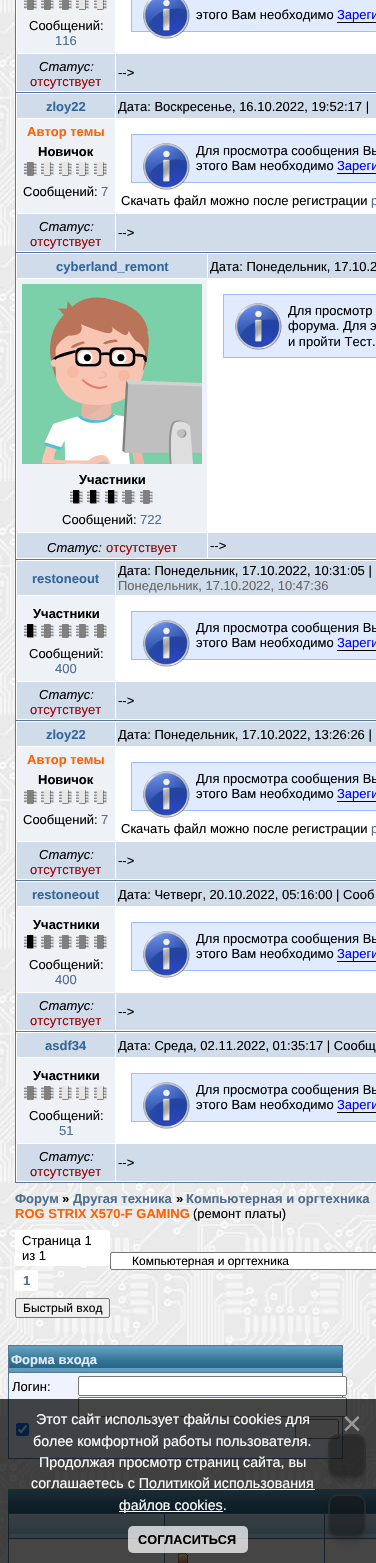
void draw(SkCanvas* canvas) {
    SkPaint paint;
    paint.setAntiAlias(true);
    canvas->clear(0xFFFFFFFF);
    canvas->drawImageRect(SkImages::DeferredFromEncodedData(SkData::MakeFromFileName("img1.png")), SkRect::MakeXYWH(0, 0, 376, 1563), SkSamplingOptions());
    paint.setColor(0xFF597798);
    canvas->drawRect(SkRect::MakeXYWH(15, 0, 361, 1183), paint);
    paint.setColor(0xFFFFFFFF);
    canvas->drawRect(SkRect::MakeXYWH(16, 0, 360, 92), paint);
    paint.setColor(0xFFE1EBFF);
    canvas->drawRect(SkRect::MakeXYWH(131.5f, -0.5f, 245, 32), paint);
    paint.setStyle(SkPaint::kStroke_Style);
    paint.setStrokeWidth(1);
    paint.setColor(0xFF9DBDFF);
    canvas->drawRect(SkRect::MakeXYWH(131.5f, -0.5f, 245, 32), paint);
    canvas->drawImageRect(SkImages::DeferredFromEncodedData(SkData::MakeFromFileName("img2.png")), SkRect::MakeXYWH(143, 0, 47, 39), SkSamplingOptions());
    SkFont font1(fontMgr->matchFamilyStyle("Liberation Sans", SkFontStyle::Normal()), 13);
    font1.setSubpixel(true);
    paint.setStyle(SkPaint::kFill_Style);
    paint.setColor(0xFF000000);
    canvas->drawString("этого Вам необходимо", 196, 19, font1, paint);
    canvas->drawRect(SkRect::MakeXYWH(337, 22, 39, 1), paint);
    paint.setColor(0xFF0000FF);
    canvas->drawString("Зареги", 337, 19, font1, paint);
    paint.setColor(0xFFEEF2F7);
    canvas->drawRect(SkRect::MakeXYWH(17, 0, 98, 53), paint);
    canvas->drawImageRect(SkImages::DeferredFromEncodedData(SkData::MakeFromFileName("img3.png")), SkRect::MakeXYWH(24, 0, 83, 10), SkSamplingOptions());
    paint.setColor(0xFF000000);
    canvas->drawString("Сообщений:", 29, 30, font1, paint);
    paint.setColor(0xFF4D6D91);
    canvas->drawString("116", 55, 45, font1, paint);
    paint.setColor(0xFFD1DCEB);
    canvas->drawRect(SkRect::MakeXYWH(17, 54, 98, 37), paint);
    SkFont font2(fontMgr->matchFamilyStyle("Liberation Sans", SkFontStyle::Italic()), 13);
    font2.setSubpixel(true);
    paint.setColor(0xFF000000);
    canvas->drawString("Статус:", 39, 71, font2, paint);
    paint.setColor(0xFF990000);
    canvas->drawString("отсутствует", 30, 86, font1, paint);
    paint.setColor(0xFFD1DCEB);
    canvas->drawRect(SkRect::MakeXYWH(116, 54, 260, 37), paint);
    paint.setColor(0xFF000000);
    canvas->drawString("-->", 118, 77, font1, paint);
    paint.setColor(0xFFFFFFFF);
    canvas->drawRect(SkRect::MakeXYWH(16, 93, 360, 159), paint);
    paint.setColor(0xFFD1DCEB);
    canvas->drawRect(SkRect::MakeXYWH(17, 94, 98, 24), paint);
    SkFont font3(fontMgr->matchFamilyStyle("Liberation Sans", SkFontStyle::Bold()), 13);
    font3.setSubpixel(true);
    paint.setColor(0xFF336699);
    canvas->drawString("zloy22", 46, 111, font3, paint);
    paint.setColor(0xFFD1DCEB);
    canvas->drawRect(SkRect::MakeXYWH(116, 94, 260, 24), paint);
    paint.setColor(0xFF000000);
    canvas->drawString("Дата: Воскресенье, 16.10.2022, 19:52:17 |", 118, 111, font1, paint);
    paint.setColor(0xFFEEF2F7);
    canvas->drawRect(SkRect::MakeXYWH(17, 119, 98, 94), paint);
    paint.setColor(0xFFFF6205);
    canvas->drawString("Автор темы", 27, 136, font3, paint);
    paint.setColor(0xFF000000);
    canvas->drawString("Новичок", 38, 156, font3, paint);
    canvas->drawImageRect(SkImages::DeferredFromEncodedData(SkData::MakeFromFileName("img4.png")), SkRect::MakeXYWH(24, 162, 83, 14), SkSamplingOptions());
    canvas->drawString("Сообщений:", 23, 196, font1, paint);
    paint.setColor(0xFF4D6D91);
    canvas->drawString("7", 101, 196, font1, paint);
    paint.setColor(0xFFE1EBFF);
    canvas->drawRect(SkRect::MakeXYWH(131.5f, 134.5f, 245, 48), paint);
    paint.setStyle(SkPaint::kStroke_Style);
    paint.setColor(0xFF9DBDFF);
    canvas->drawRect(SkRect::MakeXYWH(131.5f, 134.5f, 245, 48), paint);
    canvas->drawImageRect(SkImages::DeferredFromEncodedData(SkData::MakeFromFileName("img5.png")), SkRect::MakeXYWH(143, 143, 47, 47), SkSamplingOptions());
    paint.setStyle(SkPaint::kFill_Style);
    paint.setColor(0xFF000000);
    canvas->drawString("Для просмотра сообщения Вы", 196, 155, font1, paint);
    canvas->drawString("этого Вам необходимо", 196, 170, font1, paint);
    canvas->drawRect(SkRect::MakeXYWH(337, 173, 39, 1), paint);
    paint.setColor(0xFF0000FF);
    canvas->drawString("Зареги", 337, 170, font1, paint);
    paint.setColor(0xFF000000);
    canvas->drawString("Скачать файл можно после регистрации", 121, 205, font1, paint);
    paint.setColor(0xFF4D6D91);
    canvas->drawString("р", 371, 205, font1, paint);
    paint.setColor(0xFFD1DCEB);
    canvas->drawRect(SkRect::MakeXYWH(17, 214, 98, 37), paint);
    paint.setColor(0xFF000000);
    canvas->drawString("Статус:", 39, 231, font2, paint);
    paint.setColor(0xFF990000);
    canvas->drawString("отсутствует", 30, 246, font1, paint);
    paint.setColor(0xFFD1DCEB);
    canvas->drawRect(SkRect::MakeXYWH(116, 214, 260, 37), paint);
    paint.setColor(0xFF000000);
    canvas->drawString("-->", 118, 237, font1, paint);
    paint.setColor(0xFFFFFFFF);
    canvas->drawRect(SkRect::MakeXYWH(16, 253, 360, 306), paint);
    paint.setColor(0xFFD1DCEB);
    canvas->drawRect(SkRect::MakeXYWH(17, 254, 190, 24), paint);
    paint.setColor(0xFF336699);
    canvas->drawString("cyberland_remont", 56, 271, font3, paint);
    paint.setColor(0xFFD1DCEB);
    canvas->drawRect(SkRect::MakeXYWH(208, 254, 168, 24), paint);
    paint.setColor(0xFF000000);
    canvas->drawString("Дата: Понедельник, 17.10.2", 210, 271, font1, paint);
    paint.setColor(0xFFE1EBFF);
    canvas->drawRect(SkRect::MakeXYWH(223.5f, 294.5f, 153, 63), paint);
    paint.setStyle(SkPaint::kStroke_Style);
    paint.setColor(0xFF9DBDFF);
    canvas->drawRect(SkRect::MakeXYWH(223.5f, 294.5f, 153, 63), paint);
    canvas->drawImageRect(SkImages::DeferredFromEncodedData(SkData::MakeFromFileName("img6.png")), SkRect::MakeXYWH(235, 303, 47, 47), SkSamplingOptions());
    paint.setStyle(SkPaint::kFill_Style);
    paint.setColor(0xFF000000);
    canvas->drawString("Для просмотр", 288, 315, font1, paint);
    canvas->drawString("форума. Для э", 288, 330, font1, paint);
    canvas->drawString("и пройти Тест.", 288, 346, font1, paint);
    paint.setColor(0xFFEEF2F7);
    canvas->drawRect(SkRect::MakeXYWH(17, 279, 190, 253), paint);
    canvas->drawImageRect(SkImages::DeferredFromEncodedData(SkData::MakeFromFileName("img7.png")), SkRect::MakeXYWH(22, 284, 180, 180), SkSamplingOptions());
    paint.setColor(0xFF000000);
    canvas->drawString("Участники", 79, 484, font3, paint);
    canvas->drawImageRect(SkImages::DeferredFromEncodedData(SkData::MakeFromFileName("img8.png")), SkRect::MakeXYWH(70, 490, 83, 14), SkSamplingOptions());
    canvas->drawString("Сообщений:", 62, 524, font1, paint);
    paint.setColor(0xFF4D6D91);
    canvas->drawString("722", 140, 524, font1, paint);
    paint.setColor(0xFFD1DCEB);
    canvas->drawRect(SkRect::MakeXYWH(17, 533, 190, 25), paint);
    paint.setColor(0xFF000000);
    canvas->drawString("Статус:", 47, 552, font2, paint);
    paint.setColor(0xFF990000);
    canvas->drawString("отсутствует", 106, 552, font1, paint);
    paint.setColor(0xFFD1DCEB);
    canvas->drawRect(SkRect::MakeXYWH(208, 533, 168, 25), paint);
    paint.setColor(0xFF000000);
    canvas->drawString("-->", 210, 550, font1, paint);
    paint.setColor(0xFFFFFFFF);
    canvas->drawRect(SkRect::MakeXYWH(16, 560, 360, 160), paint);
    paint.setColor(0xFFD1DCEB);
    canvas->drawRect(SkRect::MakeXYWH(17, 561, 98, 34), paint);
    paint.setColor(0xFF336699);
    canvas->drawString("restoneout", 32, 583, font3, paint);
    paint.setColor(0xFFD1DCEB);
    canvas->drawRect(SkRect::MakeXYWH(116, 561, 260, 34), paint);
    paint.setColor(0xFF000000);
    canvas->drawString("Дата: Понедельник, 17.10.2022, 10:31:05 |", 118, 575, font1, paint);
    paint.setColor(0xFF666666);
    canvas->drawString("Понедельник, 17.10.2022, 10:47:36", 118, 590, font1, paint);
    paint.setColor(0xFFEEF2F7);
    canvas->drawRect(SkRect::MakeXYWH(17, 596, 98, 85), paint);
    paint.setColor(0xFF000000);
    canvas->drawString("Участники", 33, 618, font3, paint);
    canvas->drawImageRect(SkImages::DeferredFromEncodedData(SkData::MakeFromFileName("img9.png")), SkRect::MakeXYWH(24, 624, 83, 14), SkSamplingOptions());
    canvas->drawString("Сообщений:", 29, 658, font1, paint);
    paint.setColor(0xFF4D6D91);
    canvas->drawString("400", 55, 673, font1, paint);
    paint.setColor(0xFFE1EBFF);
    canvas->drawRect(SkRect::MakeXYWH(131.5f, 611.5f, 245, 48), paint);
    paint.setStyle(SkPaint::kStroke_Style);
    paint.setColor(0xFF9DBDFF);
    canvas->drawRect(SkRect::MakeXYWH(131.5f, 611.5f, 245, 48), paint);
    canvas->drawImageRect(SkImages::DeferredFromEncodedData(SkData::MakeFromFileName("img5.png")), SkRect::MakeXYWH(143, 620, 47, 47), SkSamplingOptions());
    paint.setStyle(SkPaint::kFill_Style);
    paint.setColor(0xFF000000);
    canvas->drawString("Для просмотра сообщения Вы", 196, 632, font1, paint);
    canvas->drawString("этого Вам необходимо", 196, 647, font1, paint);
    canvas->drawRect(SkRect::MakeXYWH(337, 650, 39, 1), paint);
    paint.setColor(0xFF0000FF);
    canvas->drawString("Зареги", 337, 647, font1, paint);
    paint.setColor(0xFFD1DCEB);
    canvas->drawRect(SkRect::MakeXYWH(17, 682, 98, 37), paint);
    paint.setColor(0xFF000000);
    canvas->drawString("Статус:", 39, 699, font2, paint);
    paint.setColor(0xFF990000);
    canvas->drawString("отсутствует", 30, 714, font1, paint);
    paint.setColor(0xFFD1DCEB);
    canvas->drawRect(SkRect::MakeXYWH(116, 682, 260, 37), paint);
    paint.setColor(0xFF000000);
    canvas->drawString("-->", 118, 705, font1, paint);
    paint.setColor(0xFFFFFFFF);
    canvas->drawRect(SkRect::MakeXYWH(16, 721, 360, 159), paint);
    paint.setColor(0xFFD1DCEB);
    canvas->drawRect(SkRect::MakeXYWH(17, 722, 98, 24), paint);
    paint.setColor(0xFF336699);
    canvas->drawString("zloy22", 46, 739, font3, paint);
    paint.setColor(0xFFD1DCEB);
    canvas->drawRect(SkRect::MakeXYWH(116, 722, 260, 24), paint);
    paint.setColor(0xFF000000);
    canvas->drawString("Дата: Понедельник, 17.10.2022, 13:26:26 |", 118, 739, font1, paint);
    paint.setColor(0xFFEEF2F7);
    canvas->drawRect(SkRect::MakeXYWH(17, 747, 98, 94), paint);
    paint.setColor(0xFFFF6205);
    canvas->drawString("Автор темы", 27, 764, font3, paint);
    paint.setColor(0xFF000000);
    canvas->drawString("Новичок", 38, 784, font3, paint);
    canvas->drawImageRect(SkImages::DeferredFromEncodedData(SkData::MakeFromFileName("img4.png")), SkRect::MakeXYWH(24, 790, 83, 14), SkSamplingOptions());
    canvas->drawString("Сообщений:", 23, 824, font1, paint);
    paint.setColor(0xFF4D6D91);
    canvas->drawString("7", 101, 824, font1, paint);
    paint.setColor(0xFFE1EBFF);
    canvas->drawRect(SkRect::MakeXYWH(131.5f, 762.5f, 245, 48), paint);
    paint.setStyle(SkPaint::kStroke_Style);
    paint.setColor(0xFF9DBDFF);
    canvas->drawRect(SkRect::MakeXYWH(131.5f, 762.5f, 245, 48), paint);
    canvas->drawImageRect(SkImages::DeferredFromEncodedData(SkData::MakeFromFileName("img5.png")), SkRect::MakeXYWH(143, 771, 47, 47), SkSamplingOptions());
    paint.setStyle(SkPaint::kFill_Style);
    paint.setColor(0xFF000000);
    canvas->drawString("Для просмотра сообщения Вы", 196, 783, font1, paint);
    canvas->drawString("этого Вам необходимо", 196, 798, font1, paint);
    canvas->drawRect(SkRect::MakeXYWH(337, 801, 39, 1), paint);
    paint.setColor(0xFF0000FF);
    canvas->drawString("Зареги", 337, 798, font1, paint);
    paint.setColor(0xFF000000);
    canvas->drawString("Скачать файл можно после регистрации", 121, 833, font1, paint);
    paint.setColor(0xFF4D6D91);
    canvas->drawString("р", 371, 833, font1, paint);
    paint.setColor(0xFFD1DCEB);
    canvas->drawRect(SkRect::MakeXYWH(17, 842, 98, 37), paint);
    paint.setColor(0xFF000000);
    canvas->drawString("Статус:", 39, 859, font2, paint);
    paint.setColor(0xFF990000);
    canvas->drawString("отсутствует", 30, 874, font1, paint);
    paint.setColor(0xFFD1DCEB);
    canvas->drawRect(SkRect::MakeXYWH(116, 842, 260, 37), paint);
    paint.setColor(0xFF000000);
    canvas->drawString("-->", 118, 865, font1, paint);
    paint.setColor(0xFFFFFFFF);
    canvas->drawRect(SkRect::MakeXYWH(16, 881, 360, 150), paint);
    paint.setColor(0xFFD1DCEB);
    canvas->drawRect(SkRect::MakeXYWH(17, 882, 98, 24), paint);
    paint.setColor(0xFF336699);
    canvas->drawString("restoneout", 32, 899, font3, paint);
    paint.setColor(0xFFD1DCEB);
    canvas->drawRect(SkRect::MakeXYWH(116, 882, 260, 24), paint);
    paint.setColor(0xFF000000);
    canvas->drawString("Дата: Четверг, 20.10.2022, 05:16:00 | Сооб", 118, 899, font1, paint);
    paint.setColor(0xFFEEF2F7);
    canvas->drawRect(SkRect::MakeXYWH(17, 907, 98, 85), paint);
    paint.setColor(0xFF000000);
    canvas->drawString("Участники", 33, 929, font3, paint);
    canvas->drawImageRect(SkImages::DeferredFromEncodedData(SkData::MakeFromFileName("img9.png")), SkRect::MakeXYWH(24, 935, 83, 14), SkSamplingOptions());
    canvas->drawString("Сообщений:", 29, 969, font1, paint);
    paint.setColor(0xFF4D6D91);
    canvas->drawString("400", 55, 984, font1, paint);
    paint.setColor(0xFFE1EBFF);
    canvas->drawRect(SkRect::MakeXYWH(131.5f, 922.5f, 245, 48), paint);
    paint.setStyle(SkPaint::kStroke_Style);
    paint.setColor(0xFF9DBDFF);
    canvas->drawRect(SkRect::MakeXYWH(131.5f, 922.5f, 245, 48), paint);
    canvas->drawImageRect(SkImages::DeferredFromEncodedData(SkData::MakeFromFileName("img5.png")), SkRect::MakeXYWH(143, 931, 47, 47), SkSamplingOptions());
    paint.setStyle(SkPaint::kFill_Style);
    paint.setColor(0xFF000000);
    canvas->drawString("Для просмотра сообщения Вы", 196, 943, font1, paint);
    canvas->drawString("этого Вам необходимо", 196, 958, font1, paint);
    canvas->drawRect(SkRect::MakeXYWH(337, 961, 39, 1), paint);
    paint.setColor(0xFF0000FF);
    canvas->drawString("Зареги", 337, 958, font1, paint);
    paint.setColor(0xFFD1DCEB);
    canvas->drawRect(SkRect::MakeXYWH(17, 993, 98, 37), paint);
    paint.setColor(0xFF000000);
    canvas->drawString("Статус:", 39, 1010, font2, paint);
    paint.setColor(0xFF990000);
    canvas->drawString("отсутствует", 30, 1025, font1, paint);
    paint.setColor(0xFFD1DCEB);
    canvas->drawRect(SkRect::MakeXYWH(116, 993, 260, 37), paint);
    paint.setColor(0xFF000000);
    canvas->drawString("-->", 118, 1016, font1, paint);
    paint.setColor(0xFFFFFFFF);
    canvas->drawRect(SkRect::MakeXYWH(16, 1032, 360, 150), paint);
    paint.setColor(0xFFD1DCEB);
    canvas->drawRect(SkRect::MakeXYWH(17, 1033, 98, 24), paint);
    paint.setColor(0xFF336699);
    canvas->drawString("asdf34", 45, 1050, font3, paint);
    paint.setColor(0xFFD1DCEB);
    canvas->drawRect(SkRect::MakeXYWH(116, 1033, 260, 24), paint);
    paint.setColor(0xFF000000);
    canvas->drawString("Дата: Среда, 02.11.2022, 01:35:17 | Сообщ", 118, 1050, font1, paint);
    paint.setColor(0xFFEEF2F7);
    canvas->drawRect(SkRect::MakeXYWH(17, 1058, 98, 85), paint);
    paint.setColor(0xFF000000);
    canvas->drawString("Участники", 33, 1080, font3, paint);
    canvas->drawImageRect(SkImages::DeferredFromEncodedData(SkData::MakeFromFileName("img10.png")), SkRect::MakeXYWH(24, 1086, 83, 14), SkSamplingOptions());
    canvas->drawString("Сообщений:", 29, 1120, font1, paint);
    paint.setColor(0xFF4D6D91);
    canvas->drawString("51", 59, 1135, font1, paint);
    paint.setColor(0xFFE1EBFF);
    canvas->drawRect(SkRect::MakeXYWH(131.5f, 1073.5f, 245, 48), paint);
    paint.setStyle(SkPaint::kStroke_Style);
    paint.setColor(0xFF9DBDFF);
    canvas->drawRect(SkRect::MakeXYWH(131.5f, 1073.5f, 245, 48), paint);
    canvas->drawImageRect(SkImages::DeferredFromEncodedData(SkData::MakeFromFileName("img5.png")), SkRect::MakeXYWH(143, 1082, 47, 47), SkSamplingOptions());
    paint.setStyle(SkPaint::kFill_Style);
    paint.setColor(0xFF000000);
    canvas->drawString("Для просмотра сообщения Вы", 196, 1094, font1, paint);
    canvas->drawString("этого Вам необходимо", 196, 1109, font1, paint);
    canvas->drawRect(SkRect::MakeXYWH(337, 1112, 39, 1), paint);
    paint.setColor(0xFF0000FF);
    canvas->drawString("Зареги", 337, 1109, font1, paint);
    paint.setColor(0xFFD1DCEB);
    canvas->drawRect(SkRect::MakeXYWH(17, 1144, 98, 37), paint);
    paint.setColor(0xFF000000);
    canvas->drawString("Статус:", 39, 1161, font2, paint);
    paint.setColor(0xFF990000);
    canvas->drawString("отсутствует", 30, 1176, font1, paint);
    paint.setColor(0xFFD1DCEB);
    canvas->drawRect(SkRect::MakeXYWH(116, 1144, 260, 37), paint);
    paint.setColor(0xFF000000);
    canvas->drawString("-->", 118, 1167, font1, paint);
    paint.setColor(0xFF4D6D91);
    canvas->drawString("Форум", 15, 1203, font3, paint);
    paint.setColor(0xFF000000);
    canvas->drawString("»", 62, 1203, font3, paint);
    paint.setColor(0xFF4D6D91);
    canvas->drawString("Другая техника", 73, 1203, font3, paint);
    paint.setColor(0xFF000000);
    canvas->drawString("»", 176, 1203, font3, paint);
    paint.setColor(0xFF4D6D91);
    canvas->drawString("Компьютерная и оргтехника", 186, 1203, font3, paint);
    paint.setColor(0xFFFF6205);
    canvas->drawString("ROG STRIX X570-F GAMING", 15, 1218, font3, paint);
    paint.setColor(0xFF000000);
    canvas->drawString("(ремонт платы)", 193, 1218, font1, paint);
    paint.setColor(0xFFFFFFFF);
    canvas->drawRoundRect(SkRect::MakeXYWH(15, 1230, 95, 36), 3, 3, paint);
    paint.setColor(0xFF000000);
    canvas->drawString("Страница 1", 22, 1245, font1, paint);
    canvas->drawString("из 1", 22, 1260, font1, paint);
    paint.setColor(0xFFFFFFFF);
    canvas->drawRoundRect(SkRect::MakeXYWH(15, 1270, 23, 21), 3, 3, paint);
    paint.setColor(0xFF4D6D91);
    canvas->drawString("1", 23, 1285, font3, paint);
    paint.setColor(0xFFFFFFFF);
    canvas->drawRoundRect(SkRect::MakeXYWH(110.5f, 1252.5f, 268, 17), 1.5f, 1.5f, paint);
    paint.setStyle(SkPaint::kStroke_Style);
    paint.setColor(0xFF767676);
    canvas->drawRoundRect(SkRect::MakeXYWH(110.5f, 1252.5f, 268, 17), 1.5f, 1.5f, paint);
    SkFont font4(fontMgr->matchFamilyStyle("Liberation Sans", SkFontStyle::Normal()), 12);
    font4.setSubpixel(true);
    paint.setStyle(SkPaint::kFill_Style);
    paint.setColor(0xFF000000);
    canvas->drawString("Компьютерная и оргтехника", 132, 1265, font4, paint);
    paint.setColor(0xFFEFEFEF);
    canvas->drawRoundRect(SkRect::MakeXYWH(15.5f, 1298.5f, 94, 19), 1.5f, 1.5f, paint);
    paint.setStyle(SkPaint::kStroke_Style);
    paint.setColor(0xFF767676);
    canvas->drawRoundRect(SkRect::MakeXYWH(15.5f, 1298.5f, 94, 19), 1.5f, 1.5f, paint);
    paint.setStyle(SkPaint::kFill_Style);
    paint.setColor(0xFF000000);
    canvas->drawString("Быстрый вход", 23, 1312, font4, paint);
    paint.setColor(0xFF597798);
    canvas->drawRect(SkRect::MakeXYWH(8, 1345, 335, 114), paint);
    canvas->drawImageRect(SkImages::DeferredFromEncodedData(SkData::MakeFromFileName("img11.png")), SkRect::MakeXYWH(9, 1346, 333, 26), SkSamplingOptions());
    paint.setColor(0xFFE2EBF5);
    canvas->drawString("Форма входа", 11, 1364, font3, paint);
    paint.setColor(0xFFEFF3FE);
    canvas->drawRect(SkRect::MakeXYWH(9, 1373, 333, 85), paint);
    paint.setColor(0xFF000000);
    canvas->drawString("Логин:", 12, 1391, font1, paint);
    paint.setColor(0xFFFFFFFF);
    canvas->drawRoundRect(SkRect::MakeXYWH(78.5f, 1376.5f, 268, 19), 1.5f, 1.5f, paint);
    paint.setStyle(SkPaint::kStroke_Style);
    paint.setColor(0xFF767676);
    canvas->drawRoundRect(SkRect::MakeXYWH(78.5f, 1376.5f, 268, 19), 1.5f, 1.5f, paint);
    paint.setStyle(SkPaint::kFill_Style);
    paint.setColor(0xFFFFFFFF);
    canvas->drawRoundRect(SkRect::MakeXYWH(78.5f, 1397.5f, 268, 19), 1.5f, 1.5f, paint);
    paint.setStyle(SkPaint::kStroke_Style);
    paint.setColor(0xFF767676);
    canvas->drawRoundRect(SkRect::MakeXYWH(78.5f, 1397.5f, 268, 19), 1.5f, 1.5f, paint);
    paint.setStyle(SkPaint::kFill_Style);
    paint.setColor(0xFF0075FF);
    canvas->drawRoundRect(SkRect::MakeXYWH(16, 1423, 13, 13), 2, 2, paint);
    paint.setStyle(SkPaint::kStroke_Style);
    paint.setStrokeWidth(2.1f);
    paint.setColor(0xFFFFFFFF);
    canvas->drawPath(SkPathBuilder().moveTo(18.5f, 1429.5f).lineTo(21, 1432).lineTo(26.5f, 1425.5f).detach(), paint);
    paint.setStyle(SkPaint::kFill_Style);
    paint.setColor(0xFFEFEFEF);
    canvas->drawRoundRect(SkRect::MakeXYWH(295.5f, 1419.5f, 43, 19), 1.5f, 1.5f, paint);
    paint.setStyle(SkPaint::kStroke_Style);
    paint.setStrokeWidth(1);
    paint.setColor(0xFF767676);
    canvas->drawRoundRect(SkRect::MakeXYWH(295.5f, 1419.5f, 43, 19), 1.5f, 1.5f, paint);
    canvas->drawImageRect(SkImages::DeferredFromEncodedData(SkData::MakeFromFileName("img12.png")), SkRect::MakeXYWH(8, 1489, 368, 24), SkSamplingOptions());
    paint.setStyle(SkPaint::kFill_Style);
    paint.setColor(0xFF597798);
    canvas->drawRect(SkRect::MakeXYWH(8, 1513, 368, 50), paint);
    canvas->drawImageRect(SkImages::DeferredFromEncodedData(SkData::MakeFromFileName("img13.png")), SkRect::MakeXYWH(9, 1514, 155, 24), SkSamplingOptions());
    canvas->drawImageRect(SkImages::DeferredFromEncodedData(SkData::MakeFromFileName("img14.png")), SkRect::MakeXYWH(165, 1514, 159, 24), SkSamplingOptions());
    canvas->drawImageRect(SkImages::DeferredFromEncodedData(SkData::MakeFromFileName("img15.png")), SkRect::MakeXYWH(325, 1514, 51, 24), SkSamplingOptions());
    paint.setColor(0xFFFFFFFF);
    canvas->drawRect(SkRect::MakeXYWH(9, 1539, 155, 24), paint);
    canvas->drawRect(SkRect::MakeXYWH(165, 1539, 159, 24), paint);
    canvas->drawImageRect(SkImages::DeferredFromEncodedData(SkData::MakeFromFileName("img16.png")), SkRect::MakeXYWH(178, 1553, 10, 10), SkSamplingOptions());
    canvas->drawRect(SkRect::MakeXYWH(325, 1539, 51, 24), paint);
    canvas->save();
    canvas->clipPath(SkPathBuilder(SkPathFillType::kEvenOdd).moveTo(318, 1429).lineTo(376, 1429).lineTo(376, 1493).lineTo(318, 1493).close().moveTo(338, 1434).lineTo(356, 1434).cubicTo(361.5f, 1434, 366, 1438.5f, 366, 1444).lineTo(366, 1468).cubicTo(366, 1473.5f, 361.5f, 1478, 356, 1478).lineTo(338, 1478).cubicTo(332.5f, 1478, 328, 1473.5f, 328, 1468).lineTo(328, 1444).cubicTo(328, 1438.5f, 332.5f, 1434, 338, 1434).close().detach(), true);
    paint.setColor(0x40000006);
    paint.setMaskFilter(SkMaskFilter::MakeBlur(kNormal_SkBlurStyle, 4));
    canvas->drawRoundRect(SkRect::MakeXYWH(331, 1442, 32, 38), 7, 7, paint);
    paint.setMaskFilter(nullptr);
    canvas->restore();
    paint.setColor(0x804F4F4F);
    canvas->drawRoundRect(SkRect::MakeXYWH(328, 1434, 38, 44), 10, 10, paint);
    paint.setStyle(SkPaint::kStroke_Style);
    paint.setStrokeWidth(2);
    paint.setColor(0x80CCCCCC);
    canvas->drawRoundRect(SkRect::MakeXYWH(329, 1435, 36, 42), 9, 9, paint);
    canvas->save();
    canvas->clipPath(SkPathBuilder(SkPathFillType::kEvenOdd).moveTo(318, 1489).lineTo(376, 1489).lineTo(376, 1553).lineTo(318, 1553).close().moveTo(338, 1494).lineTo(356, 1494).cubicTo(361.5f, 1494, 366, 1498.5f, 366, 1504).lineTo(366, 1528).cubicTo(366, 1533.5f, 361.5f, 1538, 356, 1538).lineTo(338, 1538).cubicTo(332.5f, 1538, 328, 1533.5f, 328, 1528).lineTo(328, 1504).cubicTo(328, 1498.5f, 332.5f, 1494, 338, 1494).close().detach(), true);
    paint.setStyle(SkPaint::kFill_Style);
    paint.setColor(0x40000006);
    paint.setMaskFilter(SkMaskFilter::MakeBlur(kNormal_SkBlurStyle, 4));
    canvas->drawRoundRect(SkRect::MakeXYWH(331, 1502, 32, 38), 7, 7, paint);
    paint.setMaskFilter(nullptr);
    canvas->restore();
    paint.setColor(0x804F4F4F);
    canvas->drawRoundRect(SkRect::MakeXYWH(328, 1494, 38, 44), 10, 10, paint);
    paint.setStyle(SkPaint::kStroke_Style);
    paint.setColor(0x80CCCCCC);
    canvas->drawRoundRect(SkRect::MakeXYWH(329, 1495, 36, 42), 9, 9, paint);
    paint.setStyle(SkPaint::kFill_Style);
    paint.setColor(0xBA000000);
    canvas->drawRect(SkRect::MakeXYWH(0, 1399, 376, 164), paint);
    SkFont font5(fontMgr->matchFamilyStyle("Liberation Sans", SkFontStyle::Normal()), 14.25f);
    font5.setSubpixel(true);
    paint.setColor(0xFFFFFFFF);
    canvas->drawString("Этот сайт использует файлы cookies для", 36, 1424, font5, paint);
    canvas->drawString("более комфортной работы пользователя.", 33, 1446, font5, paint);
    canvas->drawString("Продолжая просмотр страниц сайта, вы", 39, 1467, font5, paint);
    canvas->drawString("соглашаетесь с Политикой использования", 31, 1488, font5, paint);
    canvas->drawRect(SkRect::MakeXYWH(119, 1511, 104, 1), paint);
    canvas->drawString("файлов cookies.", 119, 1510, font5, paint);
    canvas->drawRect(SkRect::MakeXYWH(139, 1489, 176, 1), paint);
    SkFont font6(fontMgr->matchFamilyStyle("Liberation Sans", SkFontStyle::Normal()), 34);
    font6.setSubpixel(true);
    paint.setColor(0xFF999999);
    canvas->drawString("×", 342, 1435, font6, paint);
    paint.setColor(0xBAFFFFFF);
    canvas->drawRoundRect(SkRect::MakeXYWH(128, 1526, 120, 27), 5, 5, paint);
    SkFont font7(fontMgr->matchFamilyStyle("Liberation Sans", SkFontStyle::Bold()), 12.75f);
    font7.setSubpixel(true);
    paint.setColor(0xFF000000);
    canvas->drawString("СОГЛАСИТЬСЯ", 138, 1544, font7, paint);
}
